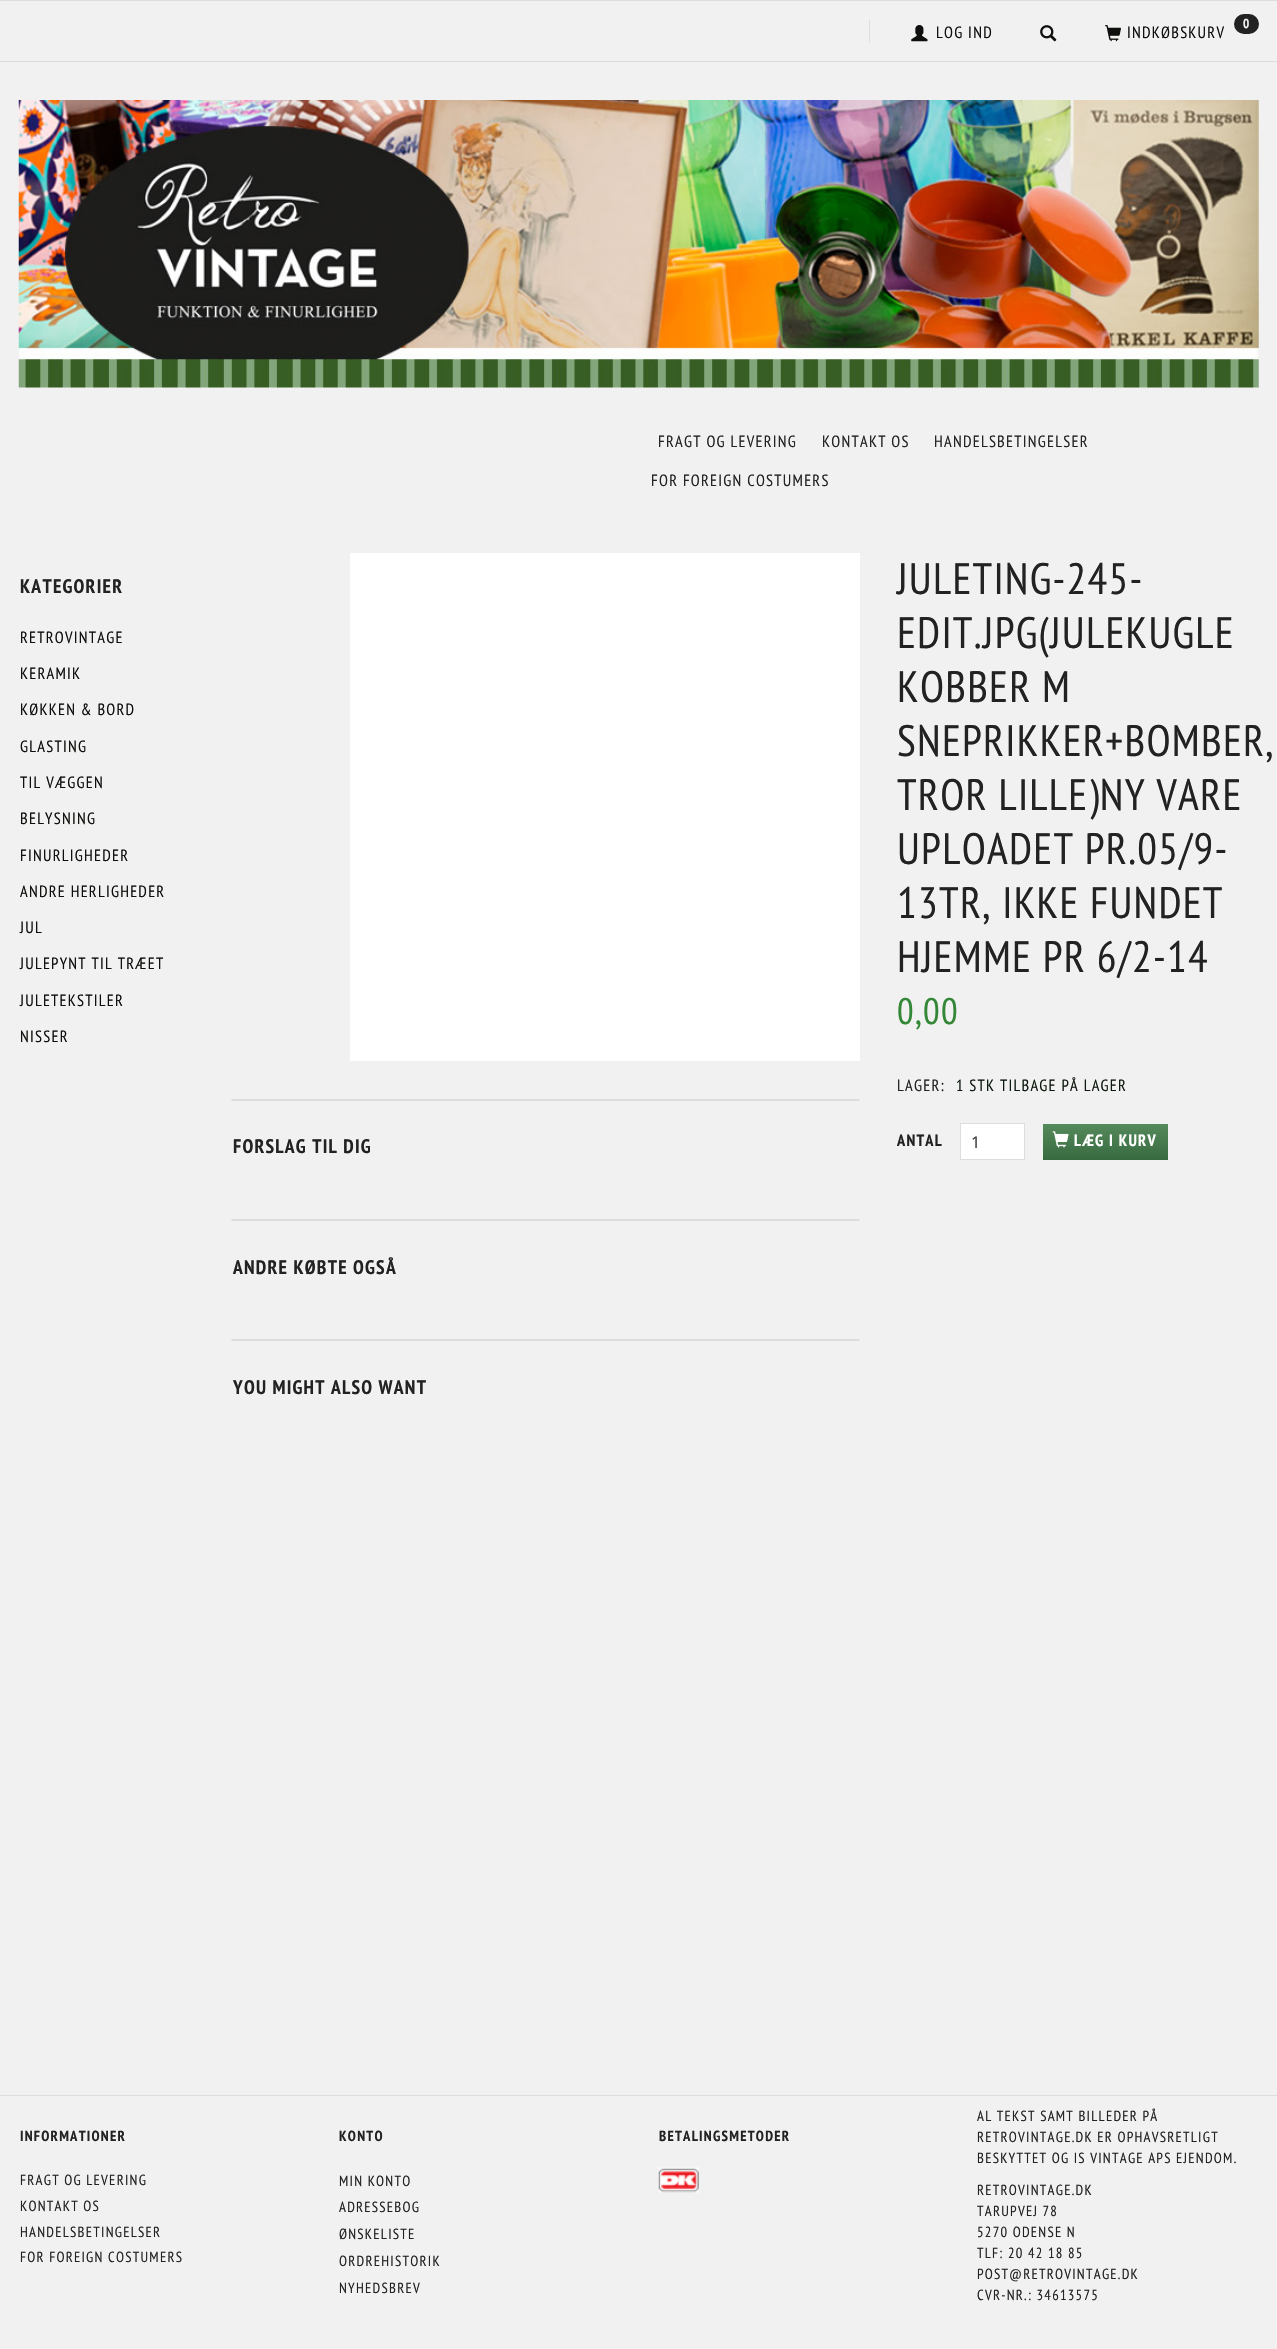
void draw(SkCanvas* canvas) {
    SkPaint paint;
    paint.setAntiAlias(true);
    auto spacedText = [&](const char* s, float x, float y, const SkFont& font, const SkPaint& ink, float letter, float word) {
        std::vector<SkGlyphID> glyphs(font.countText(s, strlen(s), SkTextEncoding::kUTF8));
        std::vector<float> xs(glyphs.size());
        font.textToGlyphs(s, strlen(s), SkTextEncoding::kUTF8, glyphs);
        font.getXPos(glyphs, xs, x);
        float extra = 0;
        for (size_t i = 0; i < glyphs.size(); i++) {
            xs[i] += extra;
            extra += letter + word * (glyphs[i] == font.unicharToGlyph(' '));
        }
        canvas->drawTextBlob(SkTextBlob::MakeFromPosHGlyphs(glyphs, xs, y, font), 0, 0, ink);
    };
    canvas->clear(0xFFF2F1F1);
    paint.setColor(0xFFDDDDDD);
    canvas->drawRect(SkRect::MakeXYWH(0, 0, 1277, 1), paint);
    canvas->drawRect(SkRect::MakeXYWH(0, 61, 1277, 1), paint);
    canvas->drawRect(SkRect::MakeXYWH(869, 20, 1, 23), paint);
    canvas->drawImageRect(SkImages::DeferredFromEncodedData(SkData::MakeFromFileName("img1.png")), SkRect::MakeXYWH(911, 25, 17, 17), SkSamplingOptions());
    SkFont font1(fontMgr->matchFamilyStyle("PT Sans Narrow", SkFontStyle::Normal()), 16.25f);
    font1.setSubpixel(true);
    paint.setColor(0xFF0C0F0C);
    spacedText("LOG IND", 936, 38, font1, paint, 1.25f, 0);
    canvas->drawImageRect(SkImages::DeferredFromEncodedData(SkData::MakeFromFileName("img2.png")), SkRect::MakeXYWH(1040, 25, 17, 17), SkSamplingOptions());
    paint.setColor(0xFF222222);
    canvas->drawRoundRect(SkRect::MakeXYWH(1234, 14, 25, 20), 10, 10, paint);
    SkFont font2(fontMgr->matchFamilyStyle("PT Sans Narrow", SkFontStyle::Bold()), 13);
    font2.setSubpixel(true);
    paint.setColor(0xFFF2F1F1);
    spacedText("0", 1243, 28, font2, paint, 1.25f, 0);
    canvas->drawImageRect(SkImages::DeferredFromEncodedData(SkData::MakeFromFileName("img3.png")), SkRect::MakeXYWH(1105, 25, 16, 17), SkSamplingOptions());
    paint.setColor(0xFF0C0F0C);
    spacedText("INDKØBSKURV", 1127, 38, font1, paint, 1.25f, 0);
    canvas->drawImageRect(SkImages::DeferredFromEncodedData(SkData::MakeFromFileName("img4.png")), SkRect::MakeXYWH(18, 100, 1241, 288), SkSamplingOptions());
    paint.setColor(0xFF222222);
    spacedText("FRAGT OG LEVERING", 658, 447, font1, paint, 1.25f, 0);
    spacedText("KONTAKT OS", 822, 447, font1, paint, 1.25f, 0);
    spacedText("HANDELSBETINGELSER", 934, 447, font1, paint, 1.25f, 0);
    spacedText("FOR FOREIGN COSTUMERS", 651, 486, font1, paint, 1.25f, 0);
    SkFont font3(fontMgr->matchFamilyStyle("PT Sans Narrow", SkFontStyle::Bold()), 19.5f);
    font3.setSubpixel(true);
    spacedText("KATEGORIER", 20, 593, font3, paint, 1.25f, 0);
    paint.setColor(0xFF0C0F0C);
    spacedText("RETROVINTAGE", 20, 643, font1, paint, 1.25f, 0);
    spacedText("KERAMIK", 20, 679, font1, paint, 1.25f, 0);
    spacedText("KØKKEN & BORD", 20, 715, font1, paint, 1.25f, 0);
    spacedText("GLASTING", 20, 752, font1, paint, 1.25f, 0);
    spacedText("TIL VÆGGEN", 20, 788, font1, paint, 1.25f, 0);
    spacedText("BELYSNING", 20, 824, font1, paint, 1.25f, 0);
    spacedText("FINURLIGHEDER", 20, 861, font1, paint, 1.25f, 0);
    spacedText("ANDRE HERLIGHEDER", 20, 897, font1, paint, 1.25f, 0);
    spacedText("JUL", 20, 933, font1, paint, 1.25f, 0);
    spacedText("JULEPYNT TIL TRÆET", 20, 969, font1, paint, 1.25f, 0);
    spacedText("JULETEKSTILER", 20, 1006, font1, paint, 1.25f, 0);
    spacedText("NISSER", 20, 1042, font1, paint, 1.25f, 0);
    SkFont font4(fontMgr->matchFamilyStyle("PT Sans Narrow", SkFontStyle::Normal()), 43.9f);
    font4.setSubpixel(true);
    paint.setColor(0xFF222222);
    spacedText("JULETING-245-", 897, 594, font4, paint, 1.25f, 0);
    spacedText("EDIT.JPG(JULEKUGLE", 897, 648, font4, paint, 1.25f, 0);
    spacedText("KOBBER M", 897, 702, font4, paint, 1.25f, 0);
    spacedText("SNEPRIKKER+BOMBER,", 897, 756, font4, paint, 1.25f, 0);
    spacedText("TROR LILLE)NY VARE", 897, 810, font4, paint, 1.25f, 0);
    spacedText("UPLOADET PR.05/9-", 897, 864, font4, paint, 1.25f, 0);
    spacedText("13TR, IKKE FUNDET", 897, 918, font4, paint, 1.25f, 0);
    spacedText("HJEMME PR 6/2-14", 897, 972, font4, paint, 1.25f, 0);
    SkFont font5(fontMgr->matchFamilyStyle("PT Sans Narrow", SkFontStyle::Normal()), 37);
    font5.setSubpixel(true);
    paint.setColor(0xFF358738);
    spacedText("0,00", 897, 1024, font5, paint, 1.25f, 0);
    paint.setColor(0xFF222222);
    spacedText("LAGER:", 897, 1091, font1, paint, 1.25f, 0);
    paint.setColor(0xFF0D190F);
    spacedText("1 STK TILBAGE PÅ LAGER", 956, 1091, font1, paint, 1.25f, 0);
    SkFont font6(fontMgr->matchFamilyStyle("PT Sans Narrow", SkFontStyle::Bold()), 16.25f);
    font6.setSubpixel(true);
    paint.setColor(0xFF222222);
    spacedText("ANTAL", 897, 1146, font6, paint, 1.25f, 0);
    paint.setColor(0xFFFFFFFF);
    canvas->drawRect(SkRect::MakeXYWH(960.5f, 1123.5f, 64, 36), paint);
    paint.setStyle(SkPaint::kStroke_Style);
    paint.setStrokeWidth(1);
    paint.setColor(0xFFDDDDDD);
    canvas->drawRect(SkRect::MakeXYWH(960.5f, 1123.5f, 64, 36), paint);
    SkFont font7(fontMgr->matchFamilyStyle("Open Sans", SkFontStyle::Normal()), 16.25f);
    font7.setSubpixel(true);
    paint.setStyle(SkPaint::kFill_Style);
    paint.setColor(0xFF373737);
    canvas->drawString("1", 971, 1148, font7, paint);
    {
        const SkColor colors[] = {0xFF558A5C, 0xFF386A3F};
        const float stops[] = {0, 1};
        const SkPoint ends[] = {{1105, 1124}, {1105, 1160}};
        paint.setShader(SkGradientShader::MakeLinear(ends, colors, stops, 2, SkTileMode::kClamp));
        paint.setAlpha(255);
    }
    canvas->drawRect(SkRect::MakeXYWH(1043, 1124, 125, 36), paint);
    canvas->drawImageRect(SkImages::DeferredFromEncodedData(SkData::MakeFromFileName("img5.png")), SkRect::MakeXYWH(1052, 1131, 17, 17), SkSamplingOptions());
    paint.setShader(nullptr);
    paint.setColor(0xFFFFFFFF);
    spacedText("LÆG I KURV", 1074, 1146, font6, paint, 1.25f, 0);
    canvas->drawRect(SkRect::MakeXYWH(350, 553, 510, 508), paint);
    paint.setColor(0xFFDDDDDD);
    canvas->drawPath(SkPathBuilder().moveTo(231, 1099).lineTo(860, 1099).lineTo(859, 1101).lineTo(232, 1101).close().detach(), paint);
    paint.setColor(0xFF222222);
    spacedText("FORSLAG TIL DIG", 233, 1153, font3, paint, 1.25f, 0);
    paint.setColor(0xFFDDDDDD);
    canvas->drawPath(SkPathBuilder().moveTo(231, 1219).lineTo(860, 1219).lineTo(859, 1221).lineTo(232, 1221).close().detach(), paint);
    paint.setColor(0xFF222222);
    spacedText("ANDRE KØBTE OGSÅ", 233, 1274, font3, paint, 1.25f, 0);
    paint.setColor(0xFFDDDDDD);
    canvas->drawPath(SkPathBuilder().moveTo(231, 1339).lineTo(860, 1339).lineTo(859, 1341).lineTo(232, 1341).close().detach(), paint);
    paint.setColor(0xFF222222);
    spacedText("YOU MIGHT ALSO WANT", 233, 1394, font3, paint, 1.25f, 0);
    paint.setColor(0xFFDDDDDD);
    canvas->drawRect(SkRect::MakeXYWH(0, 2095, 1277, 1), paint);
    SkFont font8(fontMgr->matchFamilyStyle("PT Sans Narrow", SkFontStyle::Bold()), 14.6f);
    font8.setSubpixel(true);
    paint.setColor(0xFF222222);
    spacedText("INFORMATIONER", 20, 2141, font8, paint, 1.25f, 0);
    SkFont font9(fontMgr->matchFamilyStyle("PT Sans Narrow", SkFontStyle::Normal()), 14.6f);
    font9.setSubpixel(true);
    spacedText("FRAGT OG LEVERING", 20, 2185, font9, paint, 1.25f, 0);
    spacedText("KONTAKT OS", 20, 2211, font9, paint, 1.25f, 0);
    spacedText("HANDELSBETINGELSER", 20, 2237, font9, paint, 1.25f, 0);
    spacedText("FOR FOREIGN COSTUMERS", 20, 2262, font9, paint, 1.25f, 0);
    spacedText("KONTO", 339, 2141, font8, paint, 1.25f, 0);
    spacedText("MIN KONTO", 339, 2186, font9, paint, 1.25f, 0);
    spacedText("ADRESSEBOG", 339, 2212, font9, paint, 1.25f, 0);
    spacedText("ØNSKELISTE", 339, 2239, font9, paint, 1.25f, 0);
    spacedText("ORDREHISTORIK", 339, 2266, font9, paint, 1.25f, 0);
    spacedText("NYHEDSBREV", 339, 2293, font9, paint, 1.25f, 0);
    spacedText("BETALINGSMETODER", 659, 2141, font8, paint, 1.25f, 0);
    canvas->drawImageRect(SkImages::DeferredFromEncodedData(SkData::MakeFromFileName("img6.png")), SkRect::MakeXYWH(658, 2167, 41, 26), SkSamplingOptions());
    spacedText("AL TEKST SAMT BILLEDER PÅ", 977, 2121, font9, paint, 1.25f, 0);
    spacedText("RETROVINTAGE.DK ER OPHAVSRETLIGT", 977, 2142, font9, paint, 1.25f, 0);
    spacedText("BESKYTTET OG IS VINTAGE APS EJENDOM.", 977, 2163, font9, paint, 1.25f, 0);
    spacedText("RETROVINTAGE.DK", 977, 2195, font9, paint, 1.25f, 0);
    spacedText("TARUPVEJ 78", 977, 2216, font9, paint, 1.25f, 0);
    spacedText("5270 ODENSE N", 977, 2237, font9, paint, 1.25f, 0);
    spacedText("TLF: 20 42 18 85", 977, 2258, font9, paint, 1.25f, 0);
    spacedText("POST@RETROVINTAGE.DK", 977, 2279, font9, paint, 1.25f, 0);
    spacedText("CVR-NR.: 34613575", 977, 2300, font9, paint, 1.25f, 0);
}
